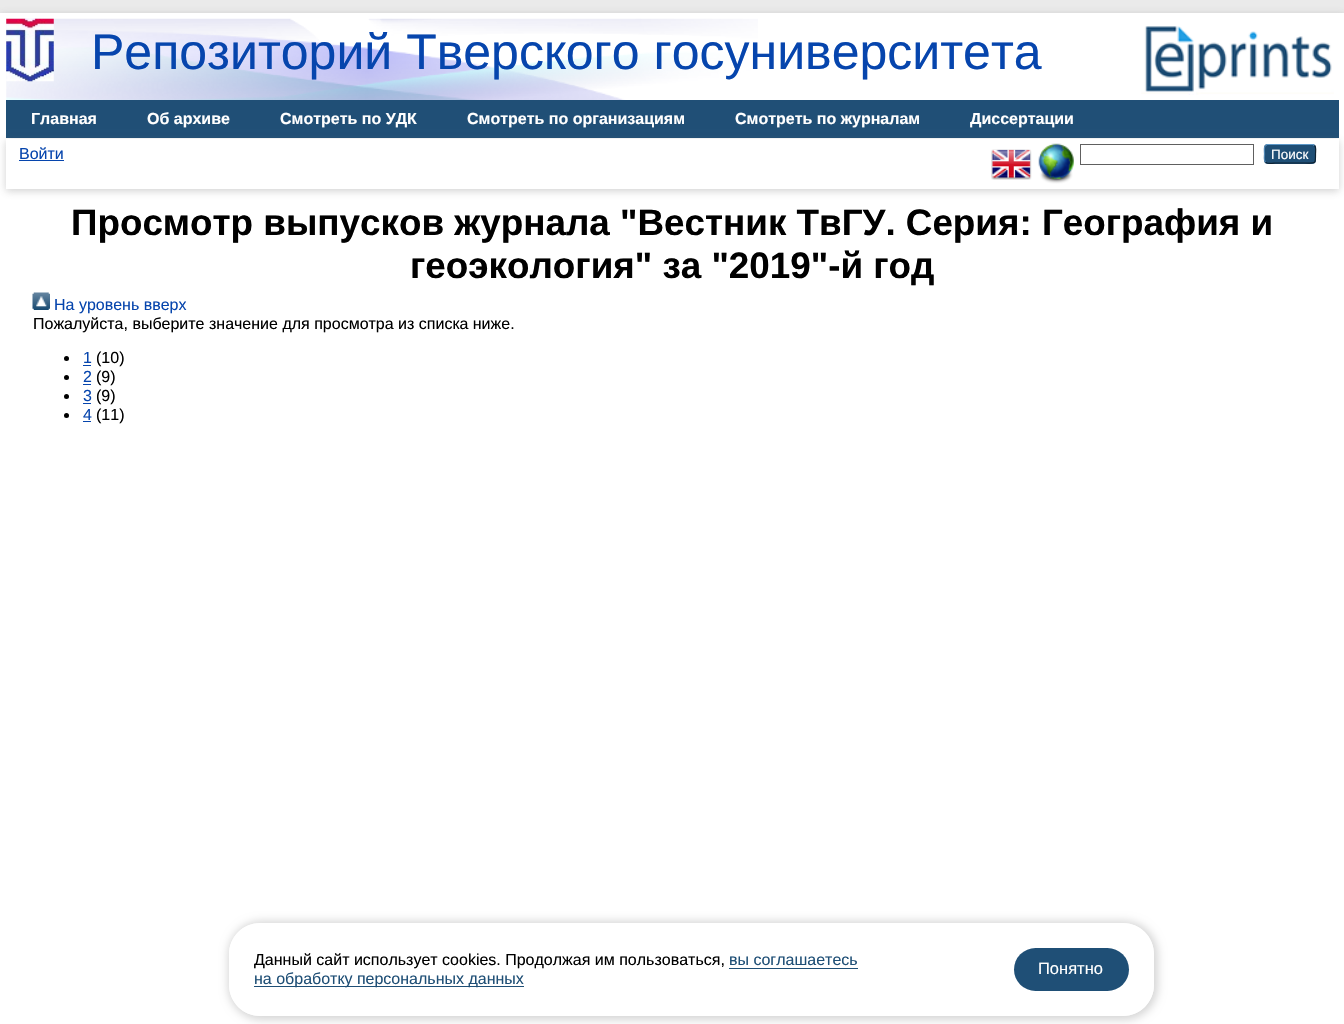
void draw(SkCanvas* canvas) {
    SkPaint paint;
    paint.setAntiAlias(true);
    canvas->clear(0xFFEAEAEA);
    paint.setColor(0x4D646464);
    paint.setMaskFilter(SkMaskFilter::MakeBlur(kNormal_SkBlurStyle, 4));
    canvas->drawRect(SkRect::MakeXYWH(0, 15, 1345, 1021), paint);
    paint.setMaskFilter(nullptr);
    paint.setColor(0xFFFFFFFF);
    canvas->drawRect(SkRect::MakeXYWH(0, 13, 1344, 1011), paint);
    canvas->drawImageRect(SkImages::DeferredFromEncodedData(SkData::MakeFromFileName("img1.png")), SkRect::MakeXYWH(6, 18, 752, 82), SkSamplingOptions());
    canvas->drawImageRect(SkImages::DeferredFromEncodedData(SkData::MakeFromFileName("img2.png")), SkRect::MakeXYWH(6, 18, 48, 64), SkSamplingOptions());
    SkFont font1(fontMgr->matchFamilyStyle("Liberation Sans", SkFontStyle::Normal()), 50);
    font1.setSubpixel(true);
    paint.setColor(0xFF0645AD);
    canvas->drawString("Репозиторий Тверского госуниверситета", 91, 69, font1, paint);
    canvas->drawImageRect(SkImages::DeferredFromEncodedData(SkData::MakeFromFileName("img3.png")), SkRect::MakeXYWH(1141, 26, 193, 69), SkSamplingOptions());
    paint.setColor(0xFF204F76);
    canvas->drawRect(SkRect::MakeXYWH(6, 100, 1333, 38), paint);
    SkFont font2(fontMgr->matchFamilyStyle("Liberation Sans", SkFontStyle::Bold()), 16);
    font2.setSubpixel(true);
    paint.setColor(0xFFFFFFFF);
    canvas->drawString("Главная", 31, 124, font2, paint);
    canvas->drawString("Об архиве", 147, 124, font2, paint);
    canvas->drawString("Смотреть по УДК", 280, 124, font2, paint);
    canvas->drawString("Смотреть по организациям", 467, 124, font2, paint);
    canvas->drawString("Смотреть по журналам", 735, 124, font2, paint);
    canvas->drawString("Диссертации", 970, 124, font2, paint);
    paint.setColor(0x4D646464);
    paint.setMaskFilter(SkMaskFilter::MakeBlur(kNormal_SkBlurStyle, 4));
    canvas->drawRect(SkRect::MakeXYWH(6, 141, 1333, 50), paint);
    paint.setMaskFilter(nullptr);
    paint.setColor(0xFFFFFFFF);
    canvas->drawRect(SkRect::MakeXYWH(6, 139, 1333, 50), paint);
    SkFont font3(fontMgr->matchFamilyStyle("Liberation Sans", SkFontStyle::Normal()), 16);
    font3.setSubpixel(true);
    paint.setColor(0xFF0645AD);
    canvas->drawString("Войти", 19, 159, font3, paint);
    canvas->drawRect(SkRect::MakeXYWH(19, 160, 45, 1), paint);
    canvas->drawImageRect(SkImages::DeferredFromEncodedData(SkData::MakeFromFileName("img4.png")), SkRect::MakeXYWH(991, 149, 41, 31), SkSamplingOptions());
    canvas->drawImageRect(SkImages::DeferredFromEncodedData(SkData::MakeFromFileName("img5.png")), SkRect::MakeXYWH(1038, 143, 36, 41), SkSamplingOptions());
    paint.setStyle(SkPaint::kStroke_Style);
    paint.setStrokeWidth(1);
    paint.setColor(0xFF606060);
    canvas->drawRect(SkRect::MakeXYWH(1080.5f, 144.5f, 173, 20), paint);
    paint.setStyle(SkPaint::kFill_Style);
    paint.setColor(0xFF1F4F76);
    canvas->drawRoundRect(SkRect::MakeXYWH(1264, 144, 52, 20), 4, 4, paint);
    paint.setStyle(SkPaint::kStroke_Style);
    paint.setStrokeWidth(1.2f);
    paint.setColor(0xFF5B97C7);
    canvas->drawPath(SkPathBuilder().moveTo(1265.5f, 145.5f).lineTo(1267, 144.5f).lineTo(1313, 144.5f).lineTo(1314.5f, 145.5f).detach(), paint);
    paint.setColor(0xFF0D2131);
    canvas->drawPath(SkPathBuilder().moveTo(1314.5f, 145.5f).cubicTo(1316.5f, 147.5f, 1315.5f, 151.5f, 1315.5f, 154).cubicTo(1315.5f, 164.5f, 1316, 163, 1305, 163).lineTo(1275, 163).cubicTo(1274, 163, 1267.5f, 164.5f, 1265.5f, 162).detach(), paint);
    paint.setColor(0xFF5287B3);
    canvas->drawPath(SkPathBuilder().moveTo(1265.5f, 162).cubicTo(1263.5f, 160.5f, 1264.5f, 156, 1264.5f, 154).cubicTo(1264.5f, 151.5f, 1263.5f, 147, 1265.5f, 145.5f).detach(), paint);
    SkFont font4(fontMgr->matchFamilyStyle("Liberation Sans", SkFontStyle::Normal()), 13.5f);
    font4.setSubpixel(true);
    paint.setStyle(SkPaint::kFill_Style);
    paint.setColor(0xFFFFFFFF);
    canvas->drawString("Поиск", 1271, 159, font4, paint);
    SkFont font5(fontMgr->matchFamilyStyle("Liberation Sans", SkFontStyle::Bold()), 36.8f);
    font5.setSubpixel(true);
    paint.setColor(0xFF000000);
    canvas->drawString("Просмотр выпусков журнала \"Вестник ТвГУ. Серия: География и", 71, 235, font5, paint);
    canvas->drawString("геоэкология\" за \"2019\"-й год", 410, 278, font5, paint);
    canvas->drawImageRect(SkImages::DeferredFromEncodedData(SkData::MakeFromFileName("img6.png")), SkRect::MakeXYWH(32, 292, 18, 18), SkSamplingOptions());
    paint.setColor(0xFF0645AD);
    canvas->drawString("На уровень вверх", 54, 310, font3, paint);
    paint.setColor(0xFF000000);
    canvas->drawString("Пожалуйста, выберите значение для просмотра из списка ниже.", 33, 329, font3, paint);
    canvas->drawCircle(66.5f, 358.5f, 2.5f, paint);
    paint.setColor(0xFF0645AD);
    canvas->drawString("1", 83, 363, font3, paint);
    canvas->drawRect(SkRect::MakeXYWH(83, 365, 8, 1), paint);
    paint.setColor(0xFF000000);
    canvas->drawString("(10)", 96, 363, font3, paint);
    canvas->drawCircle(66.5f, 377.5f, 2.5f, paint);
    paint.setColor(0xFF0645AD);
    canvas->drawString("2", 83, 382, font3, paint);
    canvas->drawRect(SkRect::MakeXYWH(83, 384, 8, 1), paint);
    paint.setColor(0xFF000000);
    canvas->drawString("(9)", 96, 382, font3, paint);
    canvas->drawCircle(66.5f, 396.5f, 2.5f, paint);
    paint.setColor(0xFF0645AD);
    canvas->drawString("3", 83, 401, font3, paint);
    canvas->drawRect(SkRect::MakeXYWH(83, 403, 8, 1), paint);
    paint.setColor(0xFF000000);
    canvas->drawString("(9)", 96, 401, font3, paint);
    canvas->drawCircle(66.5f, 415.5f, 2.5f, paint);
    paint.setColor(0xFF0645AD);
    canvas->drawString("4", 83, 420, font3, paint);
    canvas->drawRect(SkRect::MakeXYWH(83, 421, 8, 1), paint);
    paint.setColor(0xFF000000);
    canvas->drawString("(11)", 96, 420, font3, paint);
    canvas->save();
    canvas->clipPath(SkPathBuilder(SkPathFillType::kEvenOdd).moveTo(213, 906).lineTo(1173, 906).lineTo(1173, 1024).lineTo(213, 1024).close().moveTo(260, 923).lineTo(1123, 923).cubicTo(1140, 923, 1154, 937, 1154, 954).lineTo(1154, 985).cubicTo(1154, 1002, 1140, 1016, 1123, 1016).lineTo(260, 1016).cubicTo(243, 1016, 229, 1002, 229, 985).lineTo(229, 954).cubicTo(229, 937, 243, 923, 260, 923).close().detach(), true);
    paint.setColor(0x29000000);
    paint.setMaskFilter(SkMaskFilter::MakeBlur(kNormal_SkBlurStyle, 4.5f));
    canvas->drawRoundRect(SkRect::MakeXYWH(228, 921, 930, 99), 34, 34, paint);
    paint.setMaskFilter(nullptr);
    canvas->restore();
    paint.setColor(0xE6FFFFFF);
    canvas->drawRoundRect(SkRect::MakeXYWH(229, 923, 925, 93), 31, 31, paint);
    paint.setColor(0xFF000000);
    canvas->drawString("Данный сайт использует cookies. Продолжая им пользоваться,", 254, 965, font3, paint);
    paint.setColor(0xFF1F4F76);
    canvas->drawString("вы соглашаетесь", 729, 965, font3, paint);
    canvas->drawRect(SkRect::MakeXYWH(729, 968, 129, 1), paint);
    canvas->drawRect(SkRect::MakeXYWH(254, 986, 270, 1), paint);
    canvas->drawString("на обработку персональных данных", 254, 984, font3, paint);
    canvas->drawRoundRect(SkRect::MakeXYWH(1014, 948, 115, 43), 21.5f, 21.5f, paint);
    SkFont font6(fontMgr->matchFamilyStyle("Liberation Sans", SkFontStyle::Normal()), 16.5f);
    font6.setSubpixel(true);
    paint.setColor(0xFFFFFFFF);
    canvas->drawString("Понятно", 1038, 974, font6, paint);
}
